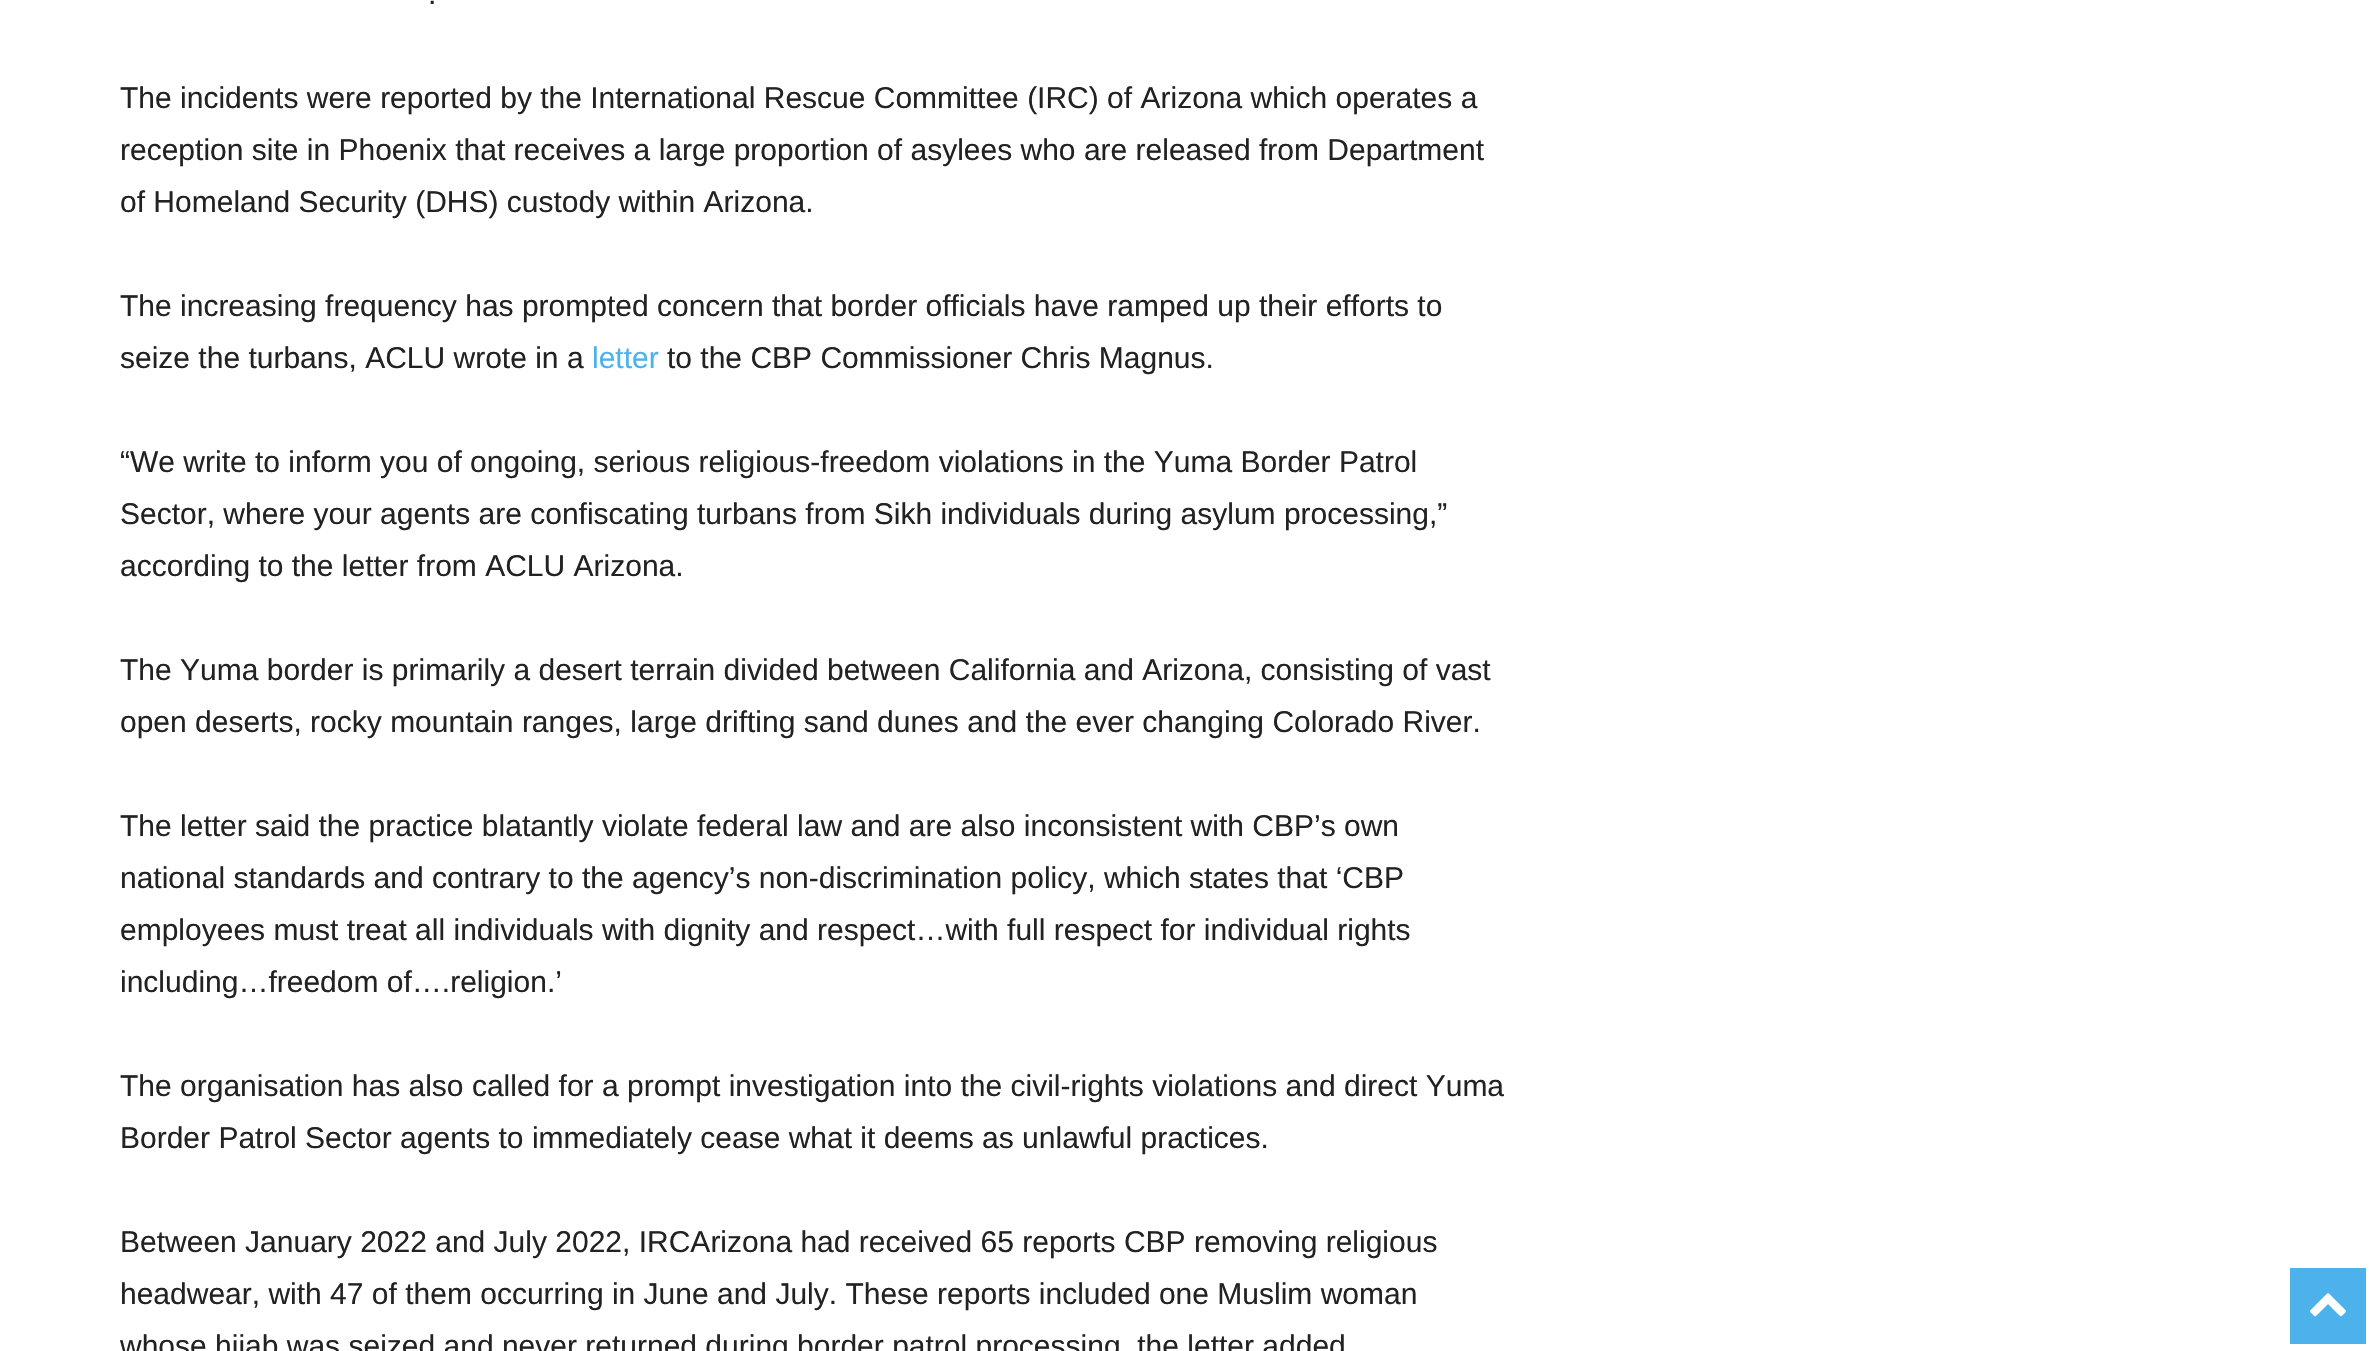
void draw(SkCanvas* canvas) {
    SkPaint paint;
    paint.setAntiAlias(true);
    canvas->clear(0xFFFFFFFF);
    SkFont font1(fontMgr->matchFamilyStyle("Liberation Sans", SkFontStyle::Normal()), 30);
    font1.setSubpixel(true);
    paint.setColor(0xFF222222);
    canvas->drawString(".", 428, 4, font1, paint);
    canvas->drawString("The incidents were reported by the International Rescue Committee (IRC) of Arizona which operates a", 120, 108, font1, paint);
    canvas->drawString("reception site in Phoenix that receives a large proportion of asylees who are released from Department", 120, 160, font1, paint);
    canvas->drawString("of Homeland Security (DHS) custody within Arizona.", 120, 212, font1, paint);
    canvas->drawString("The increasing frequency has prompted concern that border officials have ramped up their efforts to", 120, 316, font1, paint);
    canvas->drawString("seize the turbans, ACLU wrote in a", 120, 368, font1, paint);
    paint.setColor(0xFF4DB2EC);
    canvas->drawString("letter", 592, 368, font1, paint);
    paint.setColor(0xFF222222);
    canvas->drawString("to the CBP Commissioner Chris Magnus.", 667, 368, font1, paint);
    canvas->drawString("“We write to inform you of ongoing, serious religious-freedom violations in the Yuma Border Patrol", 120, 472, font1, paint);
    canvas->drawString("Sector, where your agents are confiscating turbans from Sikh individuals during asylum processing,”", 120, 524, font1, paint);
    canvas->drawString("according to the letter from ACLU Arizona.", 120, 576, font1, paint);
    canvas->drawString("The Yuma border is primarily a desert terrain divided between California and Arizona, consisting of vast", 120, 680, font1, paint);
    canvas->drawString("open deserts, rocky mountain ranges, large drifting sand dunes and the ever changing Colorado River.", 120, 732, font1, paint);
    canvas->drawString("The letter said the practice blatantly violate federal law and are also inconsistent with CBP’s own", 120, 836, font1, paint);
    canvas->drawString("national standards and contrary to the agency’s non-discrimination policy, which states that ‘CBP", 120, 888, font1, paint);
    canvas->drawString("employees must treat all individuals with dignity and respect…with full respect for individual rights", 120, 940, font1, paint);
    canvas->drawString("including…freedom of….religion.’", 120, 992, font1, paint);
    canvas->drawString("The organisation has also called for a prompt investigation into the civil-rights violations and direct Yuma", 120, 1096, font1, paint);
    canvas->drawString("Border Patrol Sector agents to immediately cease what it deems as unlawful practices.", 120, 1148, font1, paint);
    canvas->drawString("Between January 2022 and July 2022, IRCArizona had received 65 reports CBP removing religious", 120, 1252, font1, paint);
    canvas->drawString("headwear, with 47 of them occurring in June and July. These reports included one Muslim woman", 120, 1304, font1, paint);
    canvas->drawString("whose hijab was seized and never returned during border patrol processing, the letter added", 120, 1356, font1, paint);
    paint.setColor(0xFF4DB2EC);
    canvas->drawRect(SkRect::MakeXYWH(2290, 1268, 76, 76), paint);
    canvas->drawImageRect(SkImages::DeferredFromEncodedData(SkData::MakeFromFileName("img1.png")), SkRect::MakeXYWH(2310, 1293, 36, 24), SkSamplingOptions());
}
